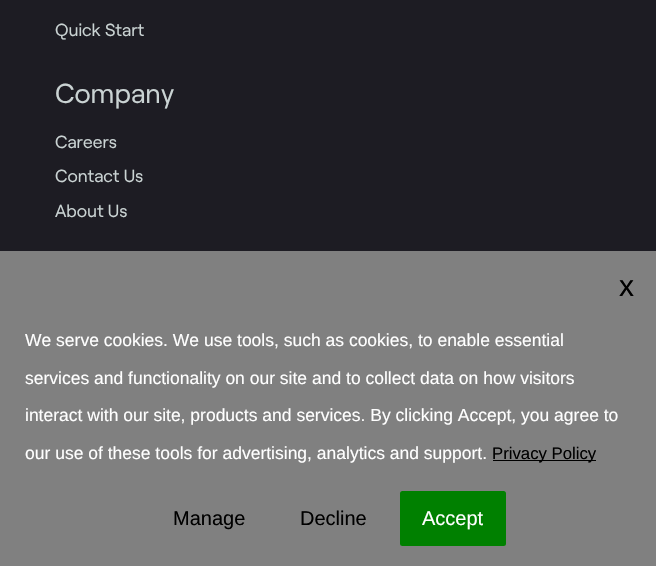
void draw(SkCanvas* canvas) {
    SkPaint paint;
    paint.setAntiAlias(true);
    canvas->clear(0xFF1D1C23);
    SkFont font1(fontMgr->matchFamilyStyle("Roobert", SkFontStyle::Normal()), 17.5f);
    font1.setSubpixel(true);
    paint.setColor(0xFFCAD3D3);
    canvas->drawString("Quick Start", 55, 36, font1, paint);
    SkFont font2(fontMgr->matchFamilyStyle("Roobert", SkFontStyle::Normal()), 27.5f);
    font2.setSubpixel(true);
    canvas->drawString("Company", 55, 103, font2, paint);
    canvas->drawString("Careers", 55, 148, font1, paint);
    canvas->drawString("Contact Us", 55, 182, font1, paint);
    canvas->drawString("About Us", 55, 217, font1, paint);
    paint.setColor(0xFF808080);
    canvas->drawRect(SkRect::MakeXYWH(0, 251, 656, 315), paint);
    SkFont font3(fontMgr->matchFamilyStyle("Liberation Sans", SkFontStyle::Normal()), 30);
    font3.setSubpixel(true);
    paint.setColor(0xFF000000);
    canvas->drawString("x", 619, 296, font3, paint);
    SkFont font4(fontMgr->matchFamilyStyle("Liberation Sans", SkFontStyle::Normal()), 17.5f);
    font4.setSubpixel(true);
    paint.setColor(0xFFFFFFFF);
    canvas->drawString("We serve cookies. We use tools, such as cookies, to enable essential", 25, 346, font4, paint);
    canvas->drawString("services and functionality on our site and to collect data on how visitors", 25, 384, font4, paint);
    canvas->drawString("interact with our site, products and services. By clicking Accept, you agree to", 25, 421, font4, paint);
    canvas->drawString("our use of these tools for advertising, analytics and support.", 25, 459, font4, paint);
    paint.setColor(0xFF000000);
    canvas->drawRect(SkRect::MakeXYWH(493, 460, 103, 1), paint);
    SkFont font5(fontMgr->matchFamilyStyle("Liberation Sans", SkFontStyle::Normal()), 16.75f);
    font5.setSubpixel(true);
    canvas->drawString("Privacy Policy", 492, 459, font5, paint);
    SkFont font6(fontMgr->matchFamilyStyle("Liberation Sans", SkFontStyle::Normal()), 20);
    font6.setSubpixel(true);
    canvas->drawString("Manage", 173, 525, font6, paint);
    canvas->drawString("Decline", 300, 525, font6, paint);
    paint.setColor(0xFF008000);
    canvas->drawRoundRect(SkRect::MakeXYWH(400, 491, 106, 55), 2.5f, 2.5f, paint);
    paint.setColor(0xFFFFFFFF);
    canvas->drawString("Accept", 422, 525, font6, paint);
}
